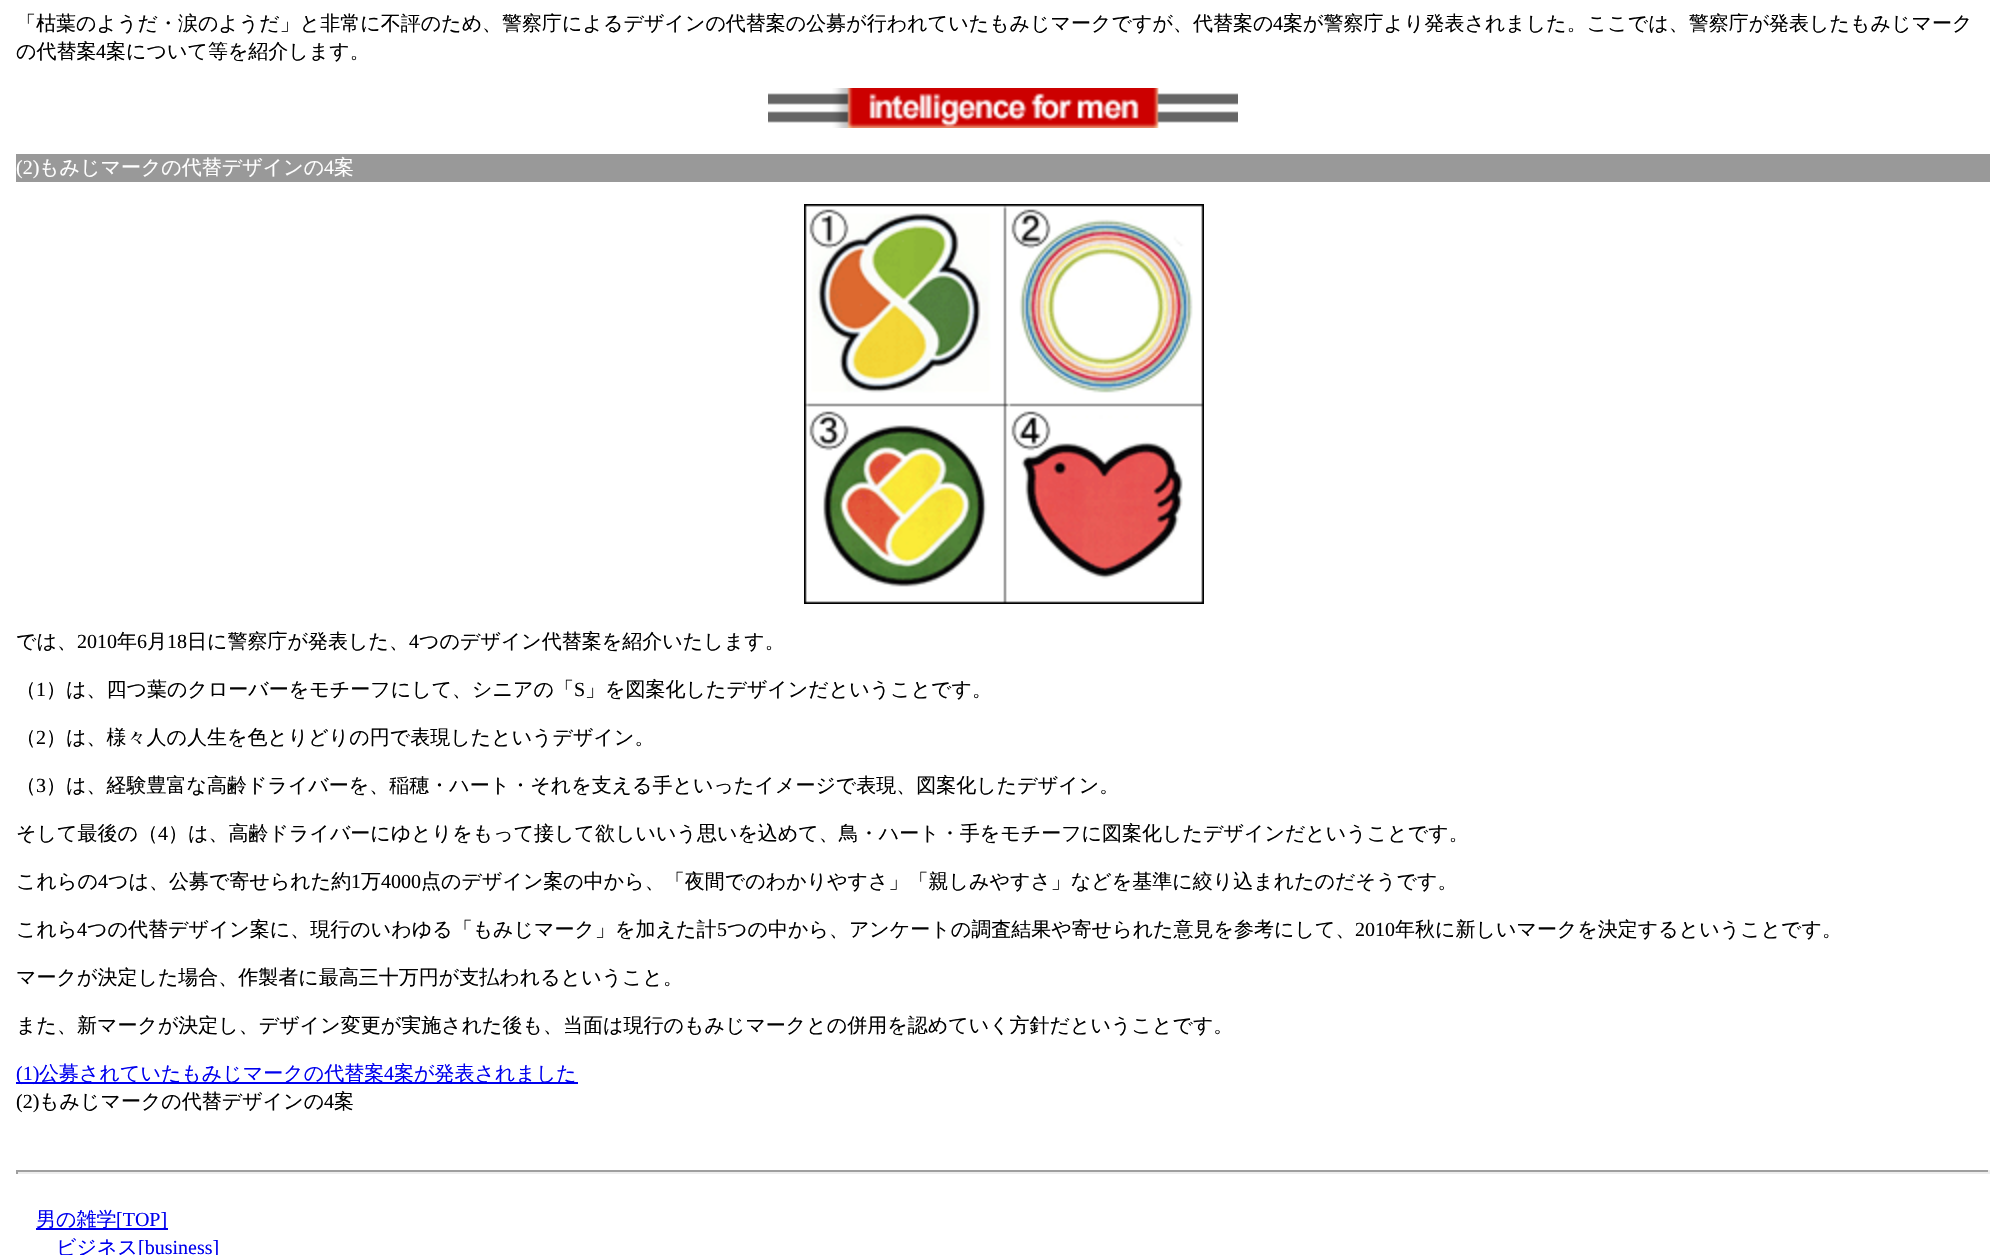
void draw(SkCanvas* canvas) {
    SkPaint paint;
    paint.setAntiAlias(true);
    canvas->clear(0xFFFFFFFF);
    SkFont font1(fontMgr->matchFamilyStyle("WenQuanYi Zen Hei", SkFontStyle(500, SkFontStyle::kNormal_Width, SkFontStyle::kUpright_Slant)), 20);
    font1.setSubpixel(true);
    paint.setColor(0xFF000000);
    canvas->drawString("「枯葉のようだ・涙のようだ」と非常に不評のため、警察庁によるデザインの代替案の公募が行われていたもみじマークですが、代替案の", 16, 30, font1, paint);
    SkFont font2(fontMgr->matchFamilyStyle("Liberation Serif", SkFontStyle::Normal()), 20);
    font2.setSubpixel(true);
    canvas->drawString("4", 1273, 30, font2, paint);
    canvas->drawString("案が警察庁より発表されました。ここでは、警察庁が発表したもみじマーク", 1283, 30, font1, paint);
    canvas->drawString("の代替案", 16, 58, font1, paint);
    canvas->drawString("4", 96, 58, font2, paint);
    canvas->drawString("案について等を紹介します。", 106, 58, font1, paint);
    canvas->drawImageRect(SkImages::DeferredFromEncodedData(SkData::MakeFromFileName("img1.png")), SkRect::MakeXYWH(768, 88, 470, 40), SkSamplingOptions());
    paint.setColor(0xFF999999);
    canvas->drawRect(SkRect::MakeXYWH(16, 154, 1974, 28), paint);
    paint.setColor(0xFFFFFFFF);
    canvas->drawString("(2)", 16, 174, font2, paint);
    canvas->drawString("もみじマークの代替デザインの", 39, 174, font1, paint);
    canvas->drawString("4", 324, 174, font2, paint);
    canvas->drawString("案", 334, 174, font1, paint);
    canvas->drawImageRect(SkImages::DeferredFromEncodedData(SkData::MakeFromFileName("img2.png")), SkRect::MakeXYWH(804, 204, 400, 400), SkSamplingOptions());
    paint.setColor(0xFF000000);
    canvas->drawString("では、", 16, 648, font1, paint);
    canvas->drawString("2010", 77, 648, font2, paint);
    canvas->drawString("年", 117, 648, font1, paint);
    canvas->drawString("6", 137, 648, font2, paint);
    canvas->drawString("月", 147, 648, font1, paint);
    canvas->drawString("18", 167, 648, font2, paint);
    canvas->drawString("日に警察庁が発表した、", 187, 648, font1, paint);
    canvas->drawString("4", 409, 648, font2, paint);
    canvas->drawString("つのデザイン代替案を紹介いたします。", 419, 648, font1, paint);
    canvas->drawString("（", 16, 696, font1, paint);
    canvas->drawString("1", 36, 696, font2, paint);
    canvas->drawString("）は、四つ葉のクローバーをモチーフにして、シニアの「", 46, 696, font1, paint);
    canvas->drawString("S", 574, 696, font2, paint);
    canvas->drawString("」を図案化したデザインだということです。", 585, 696, font1, paint);
    canvas->drawString("（", 16, 744, font1, paint);
    canvas->drawString("2", 36, 744, font2, paint);
    canvas->drawString("）は、様々人の人生を色とりどりの円で表現したというデザイン。", 46, 744, font1, paint);
    canvas->drawString("（", 16, 792, font1, paint);
    canvas->drawString("3", 36, 792, font2, paint);
    canvas->drawString("）は、経験豊富な高齢ドライバーを、稲穂・ハート・それを支える手といったイメージで表現、図案化したデザイン。", 46, 792, font1, paint);
    canvas->drawString("そして最後の（", 16, 840, font1, paint);
    canvas->drawString("4", 158, 840, font2, paint);
    canvas->drawString("）は、高齢ドライバーにゆとりをもって接して欲しいいう思いを込めて、鳥・ハート・手をモチーフに図案化したデザインだということです。", 168, 840, font1, paint);
    canvas->drawString("これらの", 16, 888, font1, paint);
    canvas->drawString("4", 98, 888, font2, paint);
    canvas->drawString("つは、公募で寄せられた約", 108, 888, font1, paint);
    canvas->drawString("1", 351, 888, font2, paint);
    canvas->drawString("万", 361, 888, font1, paint);
    canvas->drawString("4000", 381, 888, font2, paint);
    canvas->drawString("点のデザイン案の中から、「夜間でのわかりやすさ」「親しみやすさ」などを基準に絞り込まれたのだそうです。", 421, 888, font1, paint);
    canvas->drawString("これら", 16, 936, font1, paint);
    canvas->drawString("4", 77, 936, font2, paint);
    canvas->drawString("つの代替デザイン案に、現行のいわゆる「もみじマーク」を加えた計", 87, 936, font1, paint);
    canvas->drawString("5", 717, 936, font2, paint);
    canvas->drawString("つの中から、アンケートの調査結果や寄せられた意見を参考にして、", 727, 936, font1, paint);
    canvas->drawString("2010", 1355, 936, font2, paint);
    canvas->drawString("年秋に新しいマークを決定するということです。", 1395, 936, font1, paint);
    canvas->drawString("マークが決定した場合、作製者に最高三十万円が支払われるということ。", 16, 984, font1, paint);
    canvas->drawString("また、新マークが決定し、デザイン変更が実施された後も、当面は現行のもみじマークとの併用を認めていく方針だということです。", 16, 1032, font1, paint);
    paint.setColor(0xFF0000EE);
    canvas->drawRect(SkRect::MakeXYWH(16, 1082, 562, 2), paint);
    canvas->drawString("(1)", 16, 1080, font2, paint);
    canvas->drawString("公募されていたもみじマークの代替案", 39, 1080, font1, paint);
    canvas->drawString("4", 384, 1080, font2, paint);
    canvas->drawString("案が発表されました", 394, 1080, font1, paint);
    paint.setColor(0xFF000000);
    canvas->drawString("(2)", 16, 1108, font2, paint);
    canvas->drawString("もみじマークの代替デザインの", 39, 1108, font1, paint);
    canvas->drawString("4", 324, 1108, font2, paint);
    canvas->drawString("案", 334, 1108, font1, paint);
    paint.setColor(0xFF9F9F9F);
    canvas->drawRect(SkRect::MakeXYWH(16, 1170, 1974, 2), paint);
    paint.setColor(0xFFEEEEEE);
    canvas->drawRect(SkRect::MakeXYWH(1988, 1170, 2, 4), paint);
    canvas->drawRect(SkRect::MakeXYWH(16, 1172, 1974, 2), paint);
    paint.setColor(0xFF9F9F9F);
    canvas->drawRect(SkRect::MakeXYWH(16, 1170, 2, 4), paint);
    paint.setColor(0xFF0000EE);
    canvas->drawRect(SkRect::MakeXYWH(36, 1228, 132, 2), paint);
    canvas->drawString("男の雑学", 36, 1226, font1, paint);
    canvas->drawString("[TOP]", 116, 1226, font2, paint);
    canvas->drawString("ビジネス", 56, 1254, font1, paint);
    canvas->drawString("[business]", 138, 1254, font2, paint);
}
